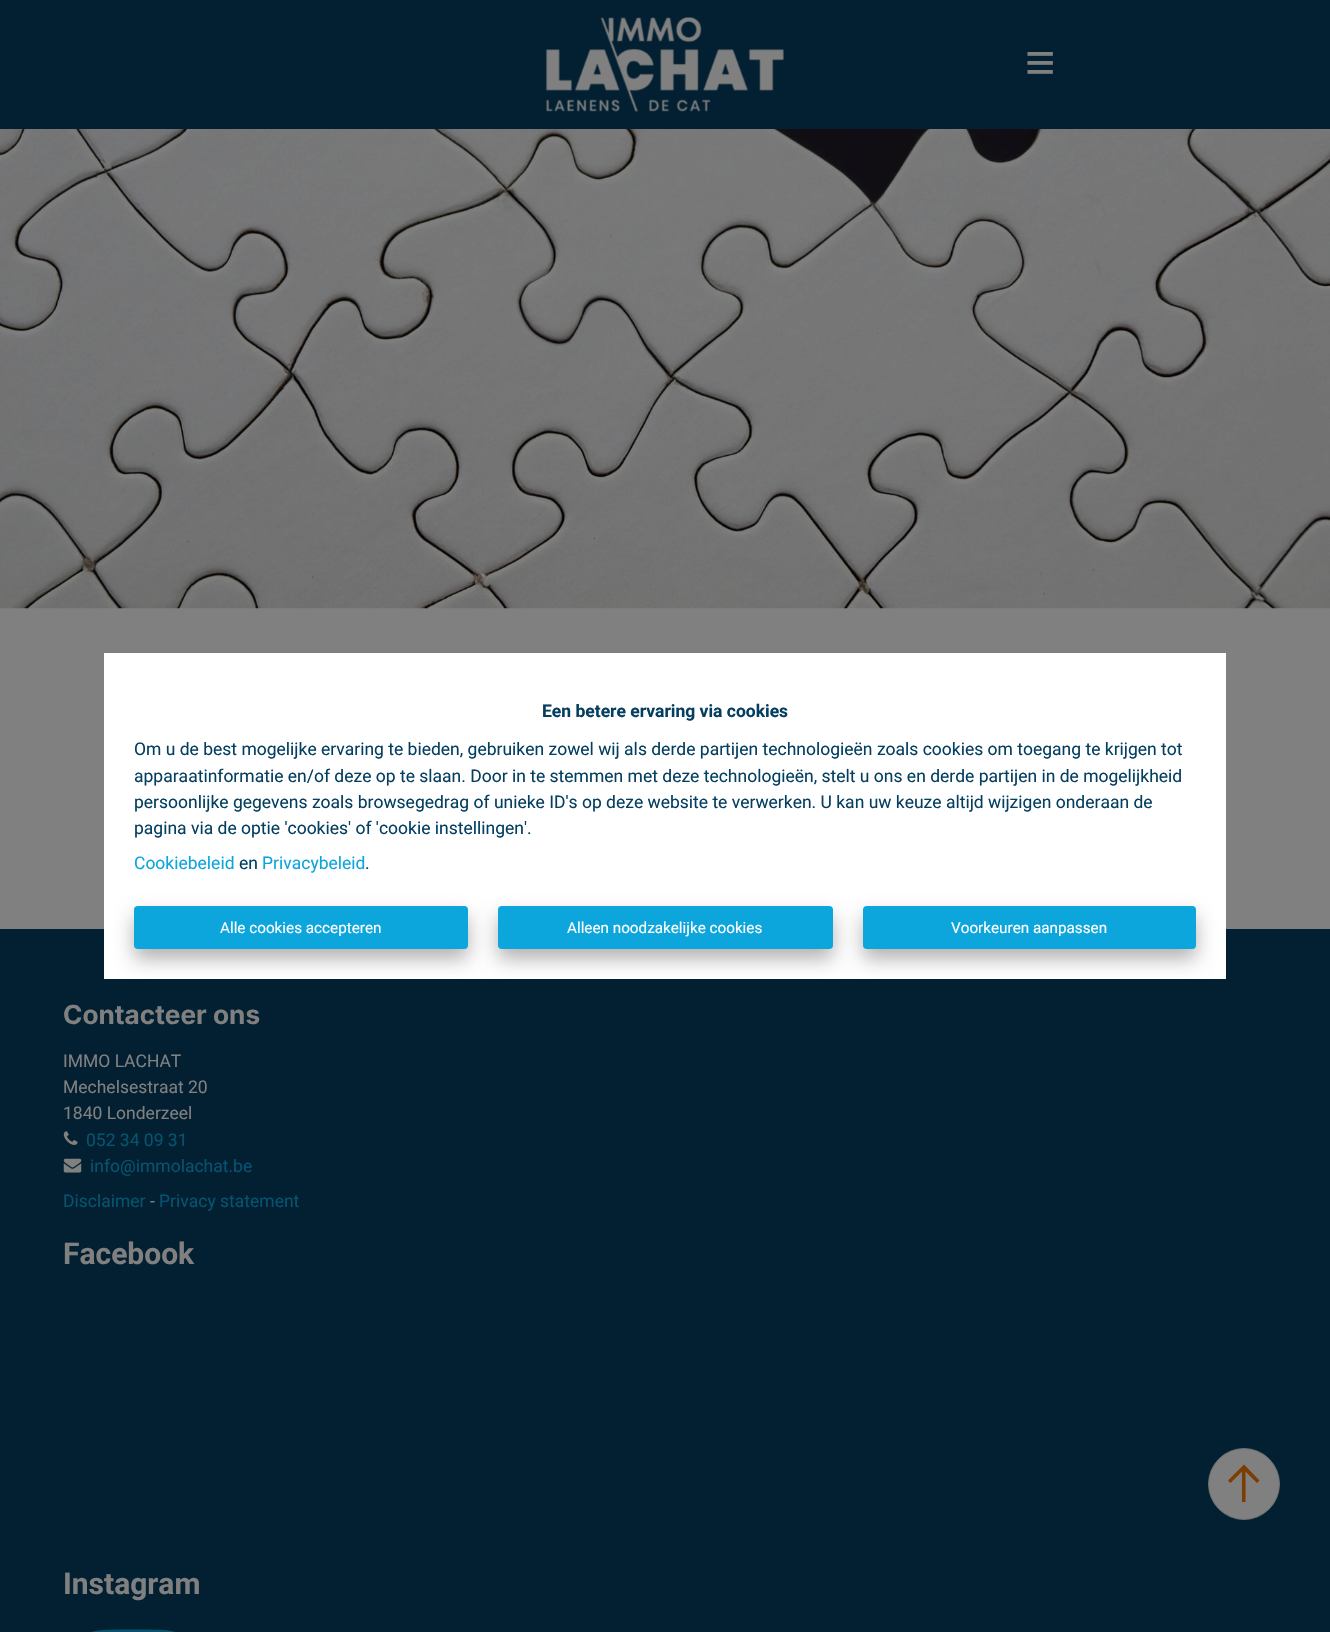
void draw(SkCanvas* canvas) {
    SkPaint paint;
    paint.setAntiAlias(true);
    canvas->clear(0xFF808080);
    paint.setColor(0xFF022031);
    canvas->drawRect(SkRect::MakeXYWH(0, 0, 1330, 129), paint);
    canvas->drawImageRect(SkImages::DeferredFromEncodedData(SkData::MakeFromFileName("img1.png")), SkRect::MakeXYWH(545, 17, 239, 95), SkSamplingOptions());
    SkFont font1(fontMgr->matchFamilyStyle("Liberation Sans", SkFontStyle::Normal()), 52);
    font1.setSubpixel(true);
    paint.setColor(0xFF808080);
    canvas->drawString("≡", 1025, 80, font1, paint);
    canvas->drawImageRect(SkImages::DeferredFromEncodedData(SkData::MakeFromFileName("img2.png")), SkRect::MakeXYWH(0, 129, 1330, 480), SkSamplingOptions());
    paint.setColor(0xFF022031);
    canvas->drawRect(SkRect::MakeXYWH(0, 929, 1330, 703), paint);
    paint.setColor(0xFFFFFFFF);
    canvas->drawRect(SkRect::MakeXYWH(104, 653, 1122, 326), paint);
    SkFont font2(fontMgr->matchFamilyStyle("Roboto", SkFontStyle::Bold()), 17.5f);
    font2.setSubpixel(true);
    paint.setColor(0xFF043F61);
    canvas->drawString("Een betere ervaring via cookies", 542, 717, font2, paint);
    SkFont font3(fontMgr->matchFamilyStyle("Roboto", SkFontStyle::Normal()), 17.5f);
    font3.setSubpixel(true);
    canvas->drawString("Om u de best mogelijke ervaring te bieden, gebruiken zowel wij als derde partijen technologieën zoals cookies om toegang te krijgen tot", 134, 755, font3, paint);
    canvas->drawString("apparaatinformatie en/of deze op te slaan. Door in te stemmen met deze technologieën, stelt u ons en derde partijen in de mogelijkheid", 134, 782, font3, paint);
    canvas->drawString("persoonlijke gegevens zoals browsegedrag of unieke ID's op deze website te verwerken. U kan uw keuze altijd wijzigen onderaan de", 134, 808, font3, paint);
    canvas->drawString("pagina via de optie 'cookies' of 'cookie instellingen'.", 134, 834, font3, paint);
    paint.setColor(0xFF0CA6DD);
    canvas->drawString("Cookiebeleid", 134, 869, font3, paint);
    paint.setColor(0xFF043F61);
    canvas->drawString("en", 239, 869, font3, paint);
    paint.setColor(0xFF0CA6DD);
    canvas->drawString("Privacybeleid", 262, 869, font3, paint);
    paint.setColor(0xFF043F61);
    canvas->drawString(".", 365, 869, font3, paint);
    paint.setColor(0x4D000000);
    paint.setMaskFilter(SkMaskFilter::MakeBlur(kNormal_SkBlurStyle, 9.5f));
    canvas->drawRoundRect(SkRect::MakeXYWH(134, 916, 334, 43), 4, 4, paint);
    paint.setMaskFilter(nullptr);
    paint.setColor(0xFF0CA6DD);
    canvas->drawRoundRect(SkRect::MakeXYWH(134, 906, 334, 43), 4, 4, paint);
    SkFont font4(fontMgr->matchFamilyStyle("Roboto", SkFontStyle::Normal()), 15.25f);
    font4.setSubpixel(true);
    paint.setColor(0xFFFFFFFF);
    canvas->drawString("Alle cookies accepteren", 220, 933, font4, paint);
    paint.setColor(0x4D000000);
    paint.setMaskFilter(SkMaskFilter::MakeBlur(kNormal_SkBlurStyle, 9.5f));
    canvas->drawRoundRect(SkRect::MakeXYWH(498, 916, 335, 43), 4, 4, paint);
    paint.setMaskFilter(nullptr);
    paint.setColor(0xFF0CA6DD);
    canvas->drawRoundRect(SkRect::MakeXYWH(498, 906, 335, 43), 4, 4, paint);
    paint.setColor(0xFFFFFFFF);
    canvas->drawString("Alleen noodzakelijke cookies", 567, 933, font4, paint);
    paint.setColor(0x4D000000);
    paint.setMaskFilter(SkMaskFilter::MakeBlur(kNormal_SkBlurStyle, 9.5f));
    canvas->drawRoundRect(SkRect::MakeXYWH(863, 916, 333, 43), 4, 4, paint);
    paint.setMaskFilter(nullptr);
    paint.setColor(0xFF0CA6DD);
    canvas->drawRoundRect(SkRect::MakeXYWH(863, 906, 333, 43), 4, 4, paint);
    paint.setColor(0xFFFFFFFF);
    canvas->drawString("Voorkeuren aanpassen", 951, 933, font4, paint);
    SkFont font5(fontMgr->matchFamilyStyle("Inter", SkFontStyle::Bold()), 26.25f);
    font5.setSubpixel(true);
    paint.setColor(0xFF808080);
    canvas->drawString("Contacteer ons", 63, 1024, font5, paint);
    canvas->drawString("IMMO LACHAT", 63, 1067, font3, paint);
    canvas->drawString("Mechelsestraat 20", 63, 1093, font3, paint);
    canvas->drawString("1840 Londerzeel", 63, 1119, font3, paint);
    canvas->drawImageRect(SkImages::DeferredFromEncodedData(SkData::MakeFromFileName("img3.png")), SkRect::MakeXYWH(63, 1131, 15, 14), SkSamplingOptions());
    paint.setColor(0xFF06536F);
    canvas->drawString("052 34 09 31", 86, 1146, font3, paint);
    canvas->drawImageRect(SkImages::DeferredFromEncodedData(SkData::MakeFromFileName("img4.png")), SkRect::MakeXYWH(63, 1158, 19, 15), SkSamplingOptions());
    canvas->drawString("info@immolachat.be", 90, 1172, font3, paint);
    canvas->drawString("Disclaimer", 63, 1207, font3, paint);
    paint.setColor(0xFF808080);
    canvas->drawString("-", 150, 1207, font3, paint);
    paint.setColor(0xFF06536F);
    canvas->drawString("Privacy statement", 159, 1207, font3, paint);
    SkFont font6(fontMgr->matchFamilyStyle("Roboto", SkFontStyle::Bold()), 30);
    font6.setSubpixel(true);
    paint.setColor(0xFF808080);
    canvas->drawString("Facebook", 63, 1264, font6, paint);
    canvas->drawString("Instagram", 63, 1594, font6, paint);
    canvas->drawImageRect(SkImages::DeferredFromEncodedData(SkData::MakeFromFileName("img5.png")), SkRect::MakeXYWH(91, 1629, 84, 3), SkSamplingOptions());
    canvas->drawCircle(1244, 1484, 35.5f, paint);
    paint.setStyle(SkPaint::kStroke_Style);
    paint.setStrokeWidth(1);
    paint.setColor(0xFF6D6D6D);
    canvas->drawCircle(1244, 1484, 35.5f, paint);
    paint.setStyle(SkPaint::kFill_Style);
    paint.setColor(0xFF7B3D01);
    canvas->drawPath(SkPathBuilder().moveTo(1242, 1471.5f).lineTo(1230.5f, 1483).lineTo(1228, 1480.5f).lineTo(1244, 1464.5f).lineTo(1259.5f, 1480.5f).lineTo(1257, 1483).lineTo(1245.5f, 1471.5f).lineTo(1245.5f, 1502).lineTo(1242, 1502).close().detach(), paint);
}
